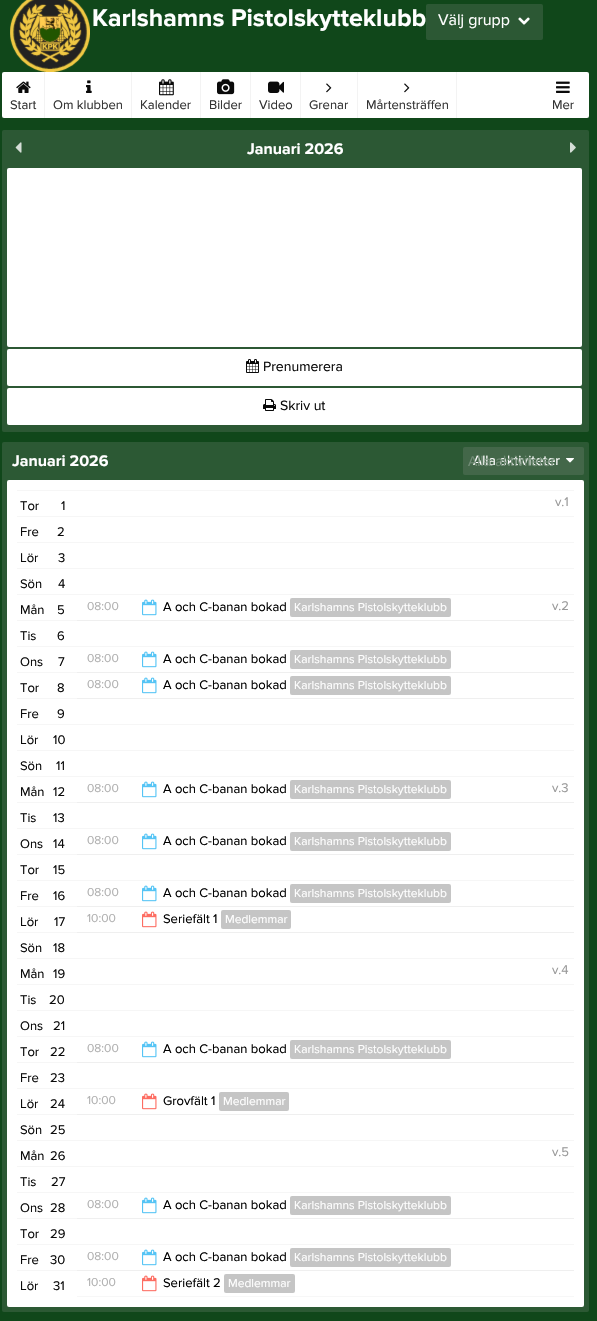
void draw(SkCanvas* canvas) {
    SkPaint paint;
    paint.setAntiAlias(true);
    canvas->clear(0xFF10471A);
    canvas->drawImageRect(SkImages::DeferredFromEncodedData(SkData::MakeFromFileName("img1.png")), SkRect::MakeXYWH(10, 0, 80, 72), SkSamplingOptions());
    SkFont font1(fontMgr->matchFamilyStyle("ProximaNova", SkFontStyle::Bold()), 25);
    font1.setSubpixel(true);
    paint.setColor(0xFFFFFFFF);
    canvas->drawString("Karlshamns Pistolskytteklubb", 92, 26, font1, paint);
    paint.setColor(0xFF2C5834);
    canvas->drawRoundRect(SkRect::MakeXYWH(426, 4, 117, 36), 2, 2, paint);
    SkFont font2(fontMgr->matchFamilyStyle("ProximaNova", SkFontStyle::Normal()), 16);
    font2.setSubpixel(true);
    paint.setColor(0xFFFFFFFF);
    canvas->drawString("Välj grupp", 438, 25, font2, paint);
    canvas->drawImageRect(SkImages::DeferredFromEncodedData(SkData::MakeFromFileName("img2.png")), SkRect::MakeXYWH(518, 17, 12, 8), SkSamplingOptions());
    canvas->drawRoundRect(SkRect::MakeXYWH(2, 72, 587, 46), 2, 2, paint);
    paint.setColor(0xFFF3F3F3);
    canvas->drawRect(SkRect::MakeXYWH(44, 72, 1, 46), paint);
    canvas->drawImageRect(SkImages::DeferredFromEncodedData(SkData::MakeFromFileName("img3.png")), SkRect::MakeXYWH(16, 81, 15, 12), SkSamplingOptions());
    SkFont font3(fontMgr->matchFamilyStyle("ProximaNova", SkFontStyle::Normal()), 13);
    font3.setSubpixel(true);
    paint.setColor(0xFF333333);
    canvas->drawString("Start", 10, 109, font3, paint);
    paint.setColor(0xFFF3F3F3);
    canvas->drawRect(SkRect::MakeXYWH(131, 72, 1, 46), paint);
    canvas->drawImageRect(SkImages::DeferredFromEncodedData(SkData::MakeFromFileName("img4.png")), SkRect::MakeXYWH(86, 80, 6, 13), SkSamplingOptions());
    paint.setColor(0xFF333333);
    canvas->drawString("Om klubben", 53, 109, font3, paint);
    paint.setColor(0xFFF3F3F3);
    canvas->drawRect(SkRect::MakeXYWH(200, 72, 1, 46), paint);
    canvas->drawImageRect(SkImages::DeferredFromEncodedData(SkData::MakeFromFileName("img5.png")), SkRect::MakeXYWH(159, 79, 15, 17), SkSamplingOptions());
    paint.setColor(0xFF333333);
    canvas->drawString("Kalender", 140, 109, font3, paint);
    paint.setColor(0xFFF3F3F3);
    canvas->drawRect(SkRect::MakeXYWH(250, 72, 1, 46), paint);
    canvas->drawImageRect(SkImages::DeferredFromEncodedData(SkData::MakeFromFileName("img6.png")), SkRect::MakeXYWH(217, 79, 18, 16), SkSamplingOptions());
    paint.setColor(0xFF333333);
    canvas->drawString("Bilder", 209, 109, font3, paint);
    paint.setColor(0xFFF3F3F3);
    canvas->drawRect(SkRect::MakeXYWH(300, 72, 1, 46), paint);
    canvas->drawImageRect(SkImages::DeferredFromEncodedData(SkData::MakeFromFileName("img7.png")), SkRect::MakeXYWH(268, 81, 16, 12), SkSamplingOptions());
    paint.setColor(0xFF333333);
    canvas->drawString("Video", 259, 109, font3, paint);
    paint.setColor(0xFFF3F3F3);
    canvas->drawRect(SkRect::MakeXYWH(357, 72, 1, 46), paint);
    canvas->drawImageRect(SkImages::DeferredFromEncodedData(SkData::MakeFromFileName("img8.png")), SkRect::MakeXYWH(326, 83, 6, 10), SkSamplingOptions());
    paint.setColor(0xFF333333);
    canvas->drawString("Grenar", 309, 109, font3, paint);
    paint.setColor(0xFFF3F3F3);
    canvas->drawRect(SkRect::MakeXYWH(456, 72, 1, 46), paint);
    canvas->drawImageRect(SkImages::DeferredFromEncodedData(SkData::MakeFromFileName("img8.png")), SkRect::MakeXYWH(404, 83, 6, 10), SkSamplingOptions());
    paint.setColor(0xFF333333);
    canvas->drawString("Mårtensträffen", 366, 109, font3, paint);
    canvas->drawImageRect(SkImages::DeferredFromEncodedData(SkData::MakeFromFileName("img9.png")), SkRect::MakeXYWH(556, 81, 14, 12), SkSamplingOptions());
    canvas->drawString("Mer", 552, 109, font3, paint);
    paint.setColor(0xFF2C5834);
    canvas->drawRoundRect(SkRect::MakeXYWH(2, 130, 587, 302), 2, 2, paint);
    canvas->drawImageRect(SkImages::DeferredFromEncodedData(SkData::MakeFromFileName("img10.png")), SkRect::MakeXYWH(15, 142, 7, 11), SkSamplingOptions());
    SkFont font4(fontMgr->matchFamilyStyle("ProximaNova", SkFontStyle::Bold()), 16);
    font4.setSubpixel(true);
    paint.setColor(0xFFFFFFFF);
    canvas->drawString("Januari 2026", 247, 154, font4, paint);
    canvas->drawImageRect(SkImages::DeferredFromEncodedData(SkData::MakeFromFileName("img11.png")), SkRect::MakeXYWH(570, 142, 6, 11), SkSamplingOptions());
    canvas->drawRoundRect(SkRect::MakeXYWH(7, 168, 575, 179), 2, 2, paint);
    canvas->drawRoundRect(SkRect::MakeXYWH(7, 349, 575, 37), 2, 2, paint);
    canvas->drawImageRect(SkImages::DeferredFromEncodedData(SkData::MakeFromFileName("img12.png")), SkRect::MakeXYWH(246, 359, 13, 14), SkSamplingOptions());
    SkFont font5(fontMgr->matchFamilyStyle("ProximaNova", SkFontStyle::Normal()), 14);
    font5.setSubpixel(true);
    paint.setColor(0xFF0A0A0A);
    canvas->drawString("Prenumerera", 263, 371, font5, paint);
    paint.setColor(0xFFFFFFFF);
    canvas->drawRoundRect(SkRect::MakeXYWH(7, 388, 575, 37), 2, 2, paint);
    canvas->drawImageRect(SkImages::DeferredFromEncodedData(SkData::MakeFromFileName("img13.png")), SkRect::MakeXYWH(263, 399, 13, 12), SkSamplingOptions());
    paint.setColor(0xFF0A0A0A);
    canvas->drawString("Skriv ut", 280, 410, font5, paint);
    paint.setColor(0xFF2C5934);
    canvas->drawRoundRect(SkRect::MakeXYWH(2, 442, 587, 870), 2, 2, paint);
    paint.setColor(0xFFFFFFFF);
    canvas->drawString("Januari 2026", 12, 466, font4, paint);
    paint.setColor(0xFF436749);
    canvas->drawRoundRect(SkRect::MakeXYWH(463, 447, 121, 28), 2, 2, paint);
    paint.setColor(0xFFFFFFFF);
    canvas->drawString("Alla aktiviteter", 473, 465, font5, paint);
    SkFont font6(fontMgr->matchFamilyStyle("Liberation Sans", SkFontStyle::Normal()), 14);
    font6.setSubpixel(true);
    paint.setColor(0xFF718C76);
    canvas->drawString("Alla aktiviteter", 468, 466, font6, paint);
    canvas->drawImageRect(SkImages::DeferredFromEncodedData(SkData::MakeFromFileName("img14.png")), SkRect::MakeXYWH(566, 458, 8, 5), SkSamplingOptions());
    paint.setColor(0xFFFFFFFF);
    canvas->drawRoundRect(SkRect::MakeXYWH(7, 480, 577, 827), 2, 2, paint);
    paint.setColor(0xFFF6F6F6);
    canvas->drawRect(SkRect::MakeXYWH(17, 490, 557, 1), paint);
    paint.setColor(0xFF0A0A0A);
    canvas->drawString("Tor", 20, 510, font3, paint);
    canvas->drawString("1", 61, 510, font3, paint);
    paint.setColor(0xFF999999);
    canvas->drawString("v.1", 555, 506, font3, paint);
    paint.setColor(0xFFF6F6F6);
    canvas->drawRect(SkRect::MakeXYWH(17, 516, 557, 1), paint);
    paint.setColor(0xFF0A0A0A);
    canvas->drawString("Fre", 20, 536, font3, paint);
    canvas->drawString("2", 57, 536, font3, paint);
    paint.setColor(0xFFF6F6F6);
    canvas->drawRect(SkRect::MakeXYWH(17, 542, 557, 1), paint);
    paint.setColor(0xFF0A0A0A);
    canvas->drawString("Lör", 20, 562, font3, paint);
    canvas->drawString("3", 58, 562, font3, paint);
    paint.setColor(0xFFF6F6F6);
    canvas->drawRect(SkRect::MakeXYWH(17, 568, 557, 1), paint);
    paint.setColor(0xFF0A0A0A);
    canvas->drawString("Sön", 20, 588, font3, paint);
    canvas->drawString("4", 58, 588, font3, paint);
    paint.setColor(0xFFF6F6F6);
    canvas->drawRect(SkRect::MakeXYWH(17, 594, 557, 1), paint);
    paint.setColor(0xFF0A0A0A);
    canvas->drawString("Mån", 20, 614, font3, paint);
    canvas->drawString("5", 57, 614, font3, paint);
    paint.setColor(0xFFEFEFEF);
    canvas->drawRect(SkRect::MakeXYWH(77, 620, 497, 1), paint);
    SkFont font7(fontMgr->matchFamilyStyle("ProximaNova", SkFontStyle::Normal()), 12);
    font7.setSubpixel(true);
    paint.setColor(0xFFB0B0B0);
    canvas->drawString("08:00", 87, 610, font7, paint);
    canvas->drawImageRect(SkImages::DeferredFromEncodedData(SkData::MakeFromFileName("img15.png")), SkRect::MakeXYWH(142, 599, 15, 17), SkSamplingOptions());
    paint.setColor(0xFF000000);
    canvas->drawString("A och C-banan bokad", 163, 611, font3, paint);
    paint.setColor(0xFFC5C5C5);
    canvas->drawRoundRect(SkRect::MakeXYWH(290, 598, 161, 19), 2, 2, paint);
    paint.setColor(0xFFFFFFFF);
    canvas->drawString("Karlshamns Pistolskytteklubb", 294, 611, font7, paint);
    paint.setColor(0xFF999999);
    canvas->drawString("v.2", 552, 610, font3, paint);
    paint.setColor(0xFFF6F6F6);
    canvas->drawRect(SkRect::MakeXYWH(17, 620, 60, 1), paint);
    paint.setColor(0xFF0A0A0A);
    canvas->drawString("Tis", 20, 640, font3, paint);
    canvas->drawString("6", 57, 640, font3, paint);
    paint.setColor(0xFFF6F6F6);
    canvas->drawRect(SkRect::MakeXYWH(17, 646, 557, 1), paint);
    paint.setColor(0xFF0A0A0A);
    canvas->drawString("Ons", 20, 666, font3, paint);
    canvas->drawString("7", 58, 666, font3, paint);
    paint.setColor(0xFFEFEFEF);
    canvas->drawRect(SkRect::MakeXYWH(77, 672, 497, 1), paint);
    paint.setColor(0xFFB0B0B0);
    canvas->drawString("08:00", 87, 662, font7, paint);
    canvas->drawImageRect(SkImages::DeferredFromEncodedData(SkData::MakeFromFileName("img15.png")), SkRect::MakeXYWH(142, 651, 15, 17), SkSamplingOptions());
    paint.setColor(0xFF000000);
    canvas->drawString("A och C-banan bokad", 163, 663, font3, paint);
    paint.setColor(0xFFC5C5C5);
    canvas->drawRoundRect(SkRect::MakeXYWH(290, 650, 161, 19), 2, 2, paint);
    paint.setColor(0xFFFFFFFF);
    canvas->drawString("Karlshamns Pistolskytteklubb", 294, 663, font7, paint);
    paint.setColor(0xFFF6F6F6);
    canvas->drawRect(SkRect::MakeXYWH(17, 672, 60, 1), paint);
    paint.setColor(0xFF0A0A0A);
    canvas->drawString("Tor", 20, 692, font3, paint);
    canvas->drawString("8", 57, 692, font3, paint);
    paint.setColor(0xFFEFEFEF);
    canvas->drawRect(SkRect::MakeXYWH(77, 698, 497, 1), paint);
    paint.setColor(0xFFB0B0B0);
    canvas->drawString("08:00", 87, 688, font7, paint);
    canvas->drawImageRect(SkImages::DeferredFromEncodedData(SkData::MakeFromFileName("img15.png")), SkRect::MakeXYWH(142, 677, 15, 17), SkSamplingOptions());
    paint.setColor(0xFF000000);
    canvas->drawString("A och C-banan bokad", 163, 689, font3, paint);
    paint.setColor(0xFFC5C5C5);
    canvas->drawRoundRect(SkRect::MakeXYWH(290, 676, 161, 19), 2, 2, paint);
    paint.setColor(0xFFFFFFFF);
    canvas->drawString("Karlshamns Pistolskytteklubb", 294, 689, font7, paint);
    paint.setColor(0xFFF6F6F6);
    canvas->drawRect(SkRect::MakeXYWH(17, 698, 60, 1), paint);
    paint.setColor(0xFF0A0A0A);
    canvas->drawString("Fre", 20, 718, font3, paint);
    canvas->drawString("9", 57, 718, font3, paint);
    paint.setColor(0xFFF6F6F6);
    canvas->drawRect(SkRect::MakeXYWH(17, 724, 557, 1), paint);
    paint.setColor(0xFF0A0A0A);
    canvas->drawString("Lör", 20, 744, font3, paint);
    canvas->drawString("10", 53, 744, font3, paint);
    paint.setColor(0xFFF6F6F6);
    canvas->drawRect(SkRect::MakeXYWH(17, 750, 557, 1), paint);
    paint.setColor(0xFF0A0A0A);
    canvas->drawString("Sön", 20, 770, font3, paint);
    canvas->drawString("11", 56, 770, font3, paint);
    paint.setColor(0xFFF6F6F6);
    canvas->drawRect(SkRect::MakeXYWH(17, 776, 557, 1), paint);
    paint.setColor(0xFF0A0A0A);
    canvas->drawString("Mån", 20, 796, font3, paint);
    canvas->drawString("12", 53, 796, font3, paint);
    paint.setColor(0xFFEFEFEF);
    canvas->drawRect(SkRect::MakeXYWH(77, 802, 497, 1), paint);
    paint.setColor(0xFFB0B0B0);
    canvas->drawString("08:00", 87, 792, font7, paint);
    canvas->drawImageRect(SkImages::DeferredFromEncodedData(SkData::MakeFromFileName("img15.png")), SkRect::MakeXYWH(142, 781, 15, 17), SkSamplingOptions());
    paint.setColor(0xFF000000);
    canvas->drawString("A och C-banan bokad", 163, 793, font3, paint);
    paint.setColor(0xFFC5C5C5);
    canvas->drawRoundRect(SkRect::MakeXYWH(290, 780, 161, 19), 2, 2, paint);
    paint.setColor(0xFFFFFFFF);
    canvas->drawString("Karlshamns Pistolskytteklubb", 294, 793, font7, paint);
    paint.setColor(0xFF999999);
    canvas->drawString("v.3", 552, 792, font3, paint);
    paint.setColor(0xFFF6F6F6);
    canvas->drawRect(SkRect::MakeXYWH(17, 802, 60, 1), paint);
    paint.setColor(0xFF0A0A0A);
    canvas->drawString("Tis", 20, 822, font3, paint);
    canvas->drawString("13", 53, 822, font3, paint);
    paint.setColor(0xFFF6F6F6);
    canvas->drawRect(SkRect::MakeXYWH(17, 828, 557, 1), paint);
    paint.setColor(0xFF0A0A0A);
    canvas->drawString("Ons", 20, 848, font3, paint);
    canvas->drawString("14", 53, 848, font3, paint);
    paint.setColor(0xFFEFEFEF);
    canvas->drawRect(SkRect::MakeXYWH(77, 854, 497, 1), paint);
    paint.setColor(0xFFB0B0B0);
    canvas->drawString("08:00", 87, 844, font7, paint);
    canvas->drawImageRect(SkImages::DeferredFromEncodedData(SkData::MakeFromFileName("img15.png")), SkRect::MakeXYWH(142, 833, 15, 17), SkSamplingOptions());
    paint.setColor(0xFF000000);
    canvas->drawString("A och C-banan bokad", 163, 845, font3, paint);
    paint.setColor(0xFFC5C5C5);
    canvas->drawRoundRect(SkRect::MakeXYWH(290, 832, 161, 19), 2, 2, paint);
    paint.setColor(0xFFFFFFFF);
    canvas->drawString("Karlshamns Pistolskytteklubb", 294, 845, font7, paint);
    paint.setColor(0xFFF6F6F6);
    canvas->drawRect(SkRect::MakeXYWH(17, 854, 60, 1), paint);
    paint.setColor(0xFF0A0A0A);
    canvas->drawString("Tor", 20, 874, font3, paint);
    canvas->drawString("15", 53, 874, font3, paint);
    paint.setColor(0xFFF6F6F6);
    canvas->drawRect(SkRect::MakeXYWH(17, 880, 557, 1), paint);
    paint.setColor(0xFF0A0A0A);
    canvas->drawString("Fre", 20, 900, font3, paint);
    canvas->drawString("16", 53, 900, font3, paint);
    paint.setColor(0xFFEFEFEF);
    canvas->drawRect(SkRect::MakeXYWH(77, 906, 497, 1), paint);
    paint.setColor(0xFFB0B0B0);
    canvas->drawString("08:00", 87, 896, font7, paint);
    canvas->drawImageRect(SkImages::DeferredFromEncodedData(SkData::MakeFromFileName("img15.png")), SkRect::MakeXYWH(142, 885, 15, 17), SkSamplingOptions());
    paint.setColor(0xFF000000);
    canvas->drawString("A och C-banan bokad", 163, 897, font3, paint);
    paint.setColor(0xFFC5C5C5);
    canvas->drawRoundRect(SkRect::MakeXYWH(290, 884, 161, 19), 2, 2, paint);
    paint.setColor(0xFFFFFFFF);
    canvas->drawString("Karlshamns Pistolskytteklubb", 294, 897, font7, paint);
    paint.setColor(0xFFF6F6F6);
    canvas->drawRect(SkRect::MakeXYWH(17, 906, 60, 1), paint);
    paint.setColor(0xFF0A0A0A);
    canvas->drawString("Lör", 20, 926, font3, paint);
    canvas->drawString("17", 54, 926, font3, paint);
    paint.setColor(0xFFEFEFEF);
    canvas->drawRect(SkRect::MakeXYWH(77, 932, 497, 1), paint);
    paint.setColor(0xFFB0B0B0);
    canvas->drawString("10:00", 87, 922, font7, paint);
    canvas->drawImageRect(SkImages::DeferredFromEncodedData(SkData::MakeFromFileName("img16.png")), SkRect::MakeXYWH(142, 911, 15, 17), SkSamplingOptions());
    paint.setColor(0xFF000000);
    canvas->drawString("Seriefält 1", 163, 923, font3, paint);
    paint.setColor(0xFFC5C5C5);
    canvas->drawRoundRect(SkRect::MakeXYWH(221, 910, 70, 19), 2, 2, paint);
    paint.setColor(0xFFFFFFFF);
    canvas->drawString("Medlemmar", 225, 923, font7, paint);
    paint.setColor(0xFFF6F6F6);
    canvas->drawRect(SkRect::MakeXYWH(17, 932, 60, 1), paint);
    paint.setColor(0xFF0A0A0A);
    canvas->drawString("Sön", 20, 952, font3, paint);
    canvas->drawString("18", 53, 952, font3, paint);
    paint.setColor(0xFFF6F6F6);
    canvas->drawRect(SkRect::MakeXYWH(17, 958, 557, 1), paint);
    paint.setColor(0xFF0A0A0A);
    canvas->drawString("Mån", 20, 978, font3, paint);
    canvas->drawString("19", 53, 978, font3, paint);
    paint.setColor(0xFF999999);
    canvas->drawString("v.4", 552, 974, font3, paint);
    paint.setColor(0xFFF6F6F6);
    canvas->drawRect(SkRect::MakeXYWH(17, 984, 557, 1), paint);
    paint.setColor(0xFF0A0A0A);
    canvas->drawString("Tis", 20, 1004, font3, paint);
    canvas->drawString("20", 49, 1004, font3, paint);
    paint.setColor(0xFFF6F6F6);
    canvas->drawRect(SkRect::MakeXYWH(17, 1010, 557, 1), paint);
    paint.setColor(0xFF0A0A0A);
    canvas->drawString("Ons", 20, 1030, font3, paint);
    canvas->drawString("21", 53, 1030, font3, paint);
    paint.setColor(0xFFF6F6F6);
    canvas->drawRect(SkRect::MakeXYWH(17, 1036, 557, 1), paint);
    paint.setColor(0xFF0A0A0A);
    canvas->drawString("Tor", 20, 1056, font3, paint);
    canvas->drawString("22", 50, 1056, font3, paint);
    paint.setColor(0xFFEFEFEF);
    canvas->drawRect(SkRect::MakeXYWH(77, 1062, 497, 1), paint);
    paint.setColor(0xFFB0B0B0);
    canvas->drawString("08:00", 87, 1052, font7, paint);
    canvas->drawImageRect(SkImages::DeferredFromEncodedData(SkData::MakeFromFileName("img15.png")), SkRect::MakeXYWH(142, 1041, 15, 17), SkSamplingOptions());
    paint.setColor(0xFF000000);
    canvas->drawString("A och C-banan bokad", 163, 1053, font3, paint);
    paint.setColor(0xFFC5C5C5);
    canvas->drawRoundRect(SkRect::MakeXYWH(290, 1040, 161, 19), 2, 2, paint);
    paint.setColor(0xFFFFFFFF);
    canvas->drawString("Karlshamns Pistolskytteklubb", 294, 1053, font7, paint);
    paint.setColor(0xFFF6F6F6);
    canvas->drawRect(SkRect::MakeXYWH(17, 1062, 60, 1), paint);
    paint.setColor(0xFF0A0A0A);
    canvas->drawString("Fre", 20, 1082, font3, paint);
    canvas->drawString("23", 50, 1082, font3, paint);
    paint.setColor(0xFFF6F6F6);
    canvas->drawRect(SkRect::MakeXYWH(17, 1088, 557, 1), paint);
    paint.setColor(0xFF0A0A0A);
    canvas->drawString("Lör", 20, 1108, font3, paint);
    canvas->drawString("24", 50, 1108, font3, paint);
    paint.setColor(0xFFEFEFEF);
    canvas->drawRect(SkRect::MakeXYWH(77, 1114, 497, 1), paint);
    paint.setColor(0xFFB0B0B0);
    canvas->drawString("10:00", 87, 1104, font7, paint);
    canvas->drawImageRect(SkImages::DeferredFromEncodedData(SkData::MakeFromFileName("img16.png")), SkRect::MakeXYWH(142, 1093, 15, 17), SkSamplingOptions());
    paint.setColor(0xFF000000);
    canvas->drawString("Grovfält 1", 163, 1105, font3, paint);
    paint.setColor(0xFFC5C5C5);
    canvas->drawRoundRect(SkRect::MakeXYWH(219, 1092, 70, 19), 2, 2, paint);
    paint.setColor(0xFFFFFFFF);
    canvas->drawString("Medlemmar", 223, 1105, font7, paint);
    paint.setColor(0xFFF6F6F6);
    canvas->drawRect(SkRect::MakeXYWH(17, 1114, 60, 1), paint);
    paint.setColor(0xFF0A0A0A);
    canvas->drawString("Sön", 20, 1134, font3, paint);
    canvas->drawString("25", 50, 1134, font3, paint);
    paint.setColor(0xFFF6F6F6);
    canvas->drawRect(SkRect::MakeXYWH(17, 1140, 557, 1), paint);
    paint.setColor(0xFF0A0A0A);
    canvas->drawString("Mån", 20, 1160, font3, paint);
    canvas->drawString("26", 50, 1160, font3, paint);
    paint.setColor(0xFF999999);
    canvas->drawString("v.5", 552, 1156, font3, paint);
    paint.setColor(0xFFF6F6F6);
    canvas->drawRect(SkRect::MakeXYWH(17, 1166, 557, 1), paint);
    paint.setColor(0xFF0A0A0A);
    canvas->drawString("Tis", 20, 1186, font3, paint);
    canvas->drawString("27", 51, 1186, font3, paint);
    paint.setColor(0xFFF6F6F6);
    canvas->drawRect(SkRect::MakeXYWH(17, 1192, 557, 1), paint);
    paint.setColor(0xFF0A0A0A);
    canvas->drawString("Ons", 20, 1212, font3, paint);
    canvas->drawString("28", 50, 1212, font3, paint);
    paint.setColor(0xFFEFEFEF);
    canvas->drawRect(SkRect::MakeXYWH(77, 1218, 497, 1), paint);
    paint.setColor(0xFFB0B0B0);
    canvas->drawString("08:00", 87, 1208, font7, paint);
    canvas->drawImageRect(SkImages::DeferredFromEncodedData(SkData::MakeFromFileName("img15.png")), SkRect::MakeXYWH(142, 1197, 15, 17), SkSamplingOptions());
    paint.setColor(0xFF000000);
    canvas->drawString("A och C-banan bokad", 163, 1209, font3, paint);
    paint.setColor(0xFFC5C5C5);
    canvas->drawRoundRect(SkRect::MakeXYWH(290, 1196, 161, 19), 2, 2, paint);
    paint.setColor(0xFFFFFFFF);
    canvas->drawString("Karlshamns Pistolskytteklubb", 294, 1209, font7, paint);
    paint.setColor(0xFFF6F6F6);
    canvas->drawRect(SkRect::MakeXYWH(17, 1218, 60, 1), paint);
    paint.setColor(0xFF0A0A0A);
    canvas->drawString("Tor", 20, 1238, font3, paint);
    canvas->drawString("29", 50, 1238, font3, paint);
    paint.setColor(0xFFF6F6F6);
    canvas->drawRect(SkRect::MakeXYWH(17, 1244, 557, 1), paint);
    paint.setColor(0xFF0A0A0A);
    canvas->drawString("Fre", 20, 1264, font3, paint);
    canvas->drawString("30", 50, 1264, font3, paint);
    paint.setColor(0xFFEFEFEF);
    canvas->drawRect(SkRect::MakeXYWH(77, 1270, 497, 1), paint);
    paint.setColor(0xFFB0B0B0);
    canvas->drawString("08:00", 87, 1260, font7, paint);
    canvas->drawImageRect(SkImages::DeferredFromEncodedData(SkData::MakeFromFileName("img15.png")), SkRect::MakeXYWH(142, 1249, 15, 17), SkSamplingOptions());
    paint.setColor(0xFF000000);
    canvas->drawString("A och C-banan bokad", 163, 1261, font3, paint);
    paint.setColor(0xFFC5C5C5);
    canvas->drawRoundRect(SkRect::MakeXYWH(290, 1248, 161, 19), 2, 2, paint);
    paint.setColor(0xFFFFFFFF);
    canvas->drawString("Karlshamns Pistolskytteklubb", 294, 1261, font7, paint);
    paint.setColor(0xFFF6F6F6);
    canvas->drawRect(SkRect::MakeXYWH(17, 1270, 60, 1), paint);
    paint.setColor(0xFF0A0A0A);
    canvas->drawString("Lör", 20, 1290, font3, paint);
    canvas->drawString("31", 53, 1290, font3, paint);
    paint.setColor(0xFFF7F7F7);
    canvas->drawRect(SkRect::MakeXYWH(77, 1296, 497, 1), paint);
    paint.setColor(0xFFB0B0B0);
    canvas->drawString("10:00", 87, 1286, font7, paint);
    canvas->drawImageRect(SkImages::DeferredFromEncodedData(SkData::MakeFromFileName("img16.png")), SkRect::MakeXYWH(142, 1275, 15, 17), SkSamplingOptions());
    paint.setColor(0xFF000000);
    canvas->drawString("Seriefält 2", 163, 1287, font3, paint);
    paint.setColor(0xFFC5C5C5);
    canvas->drawRoundRect(SkRect::MakeXYWH(224, 1274, 71, 19), 2, 2, paint);
    paint.setColor(0xFFFFFFFF);
    canvas->drawString("Medlemmar", 228, 1287, font7, paint);
}
